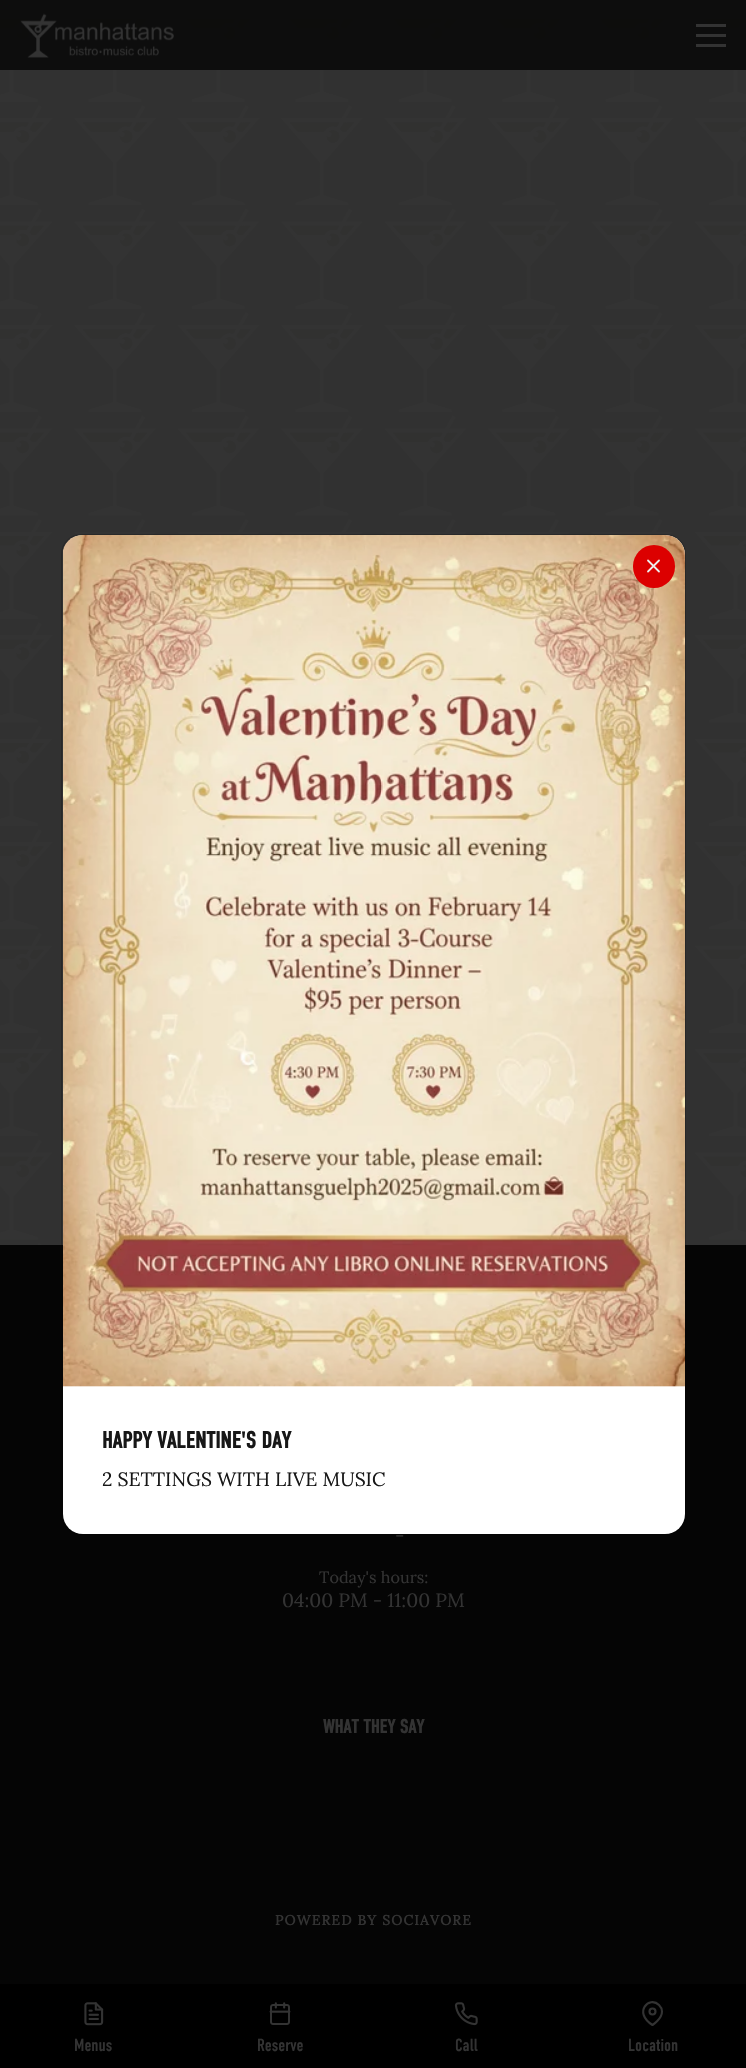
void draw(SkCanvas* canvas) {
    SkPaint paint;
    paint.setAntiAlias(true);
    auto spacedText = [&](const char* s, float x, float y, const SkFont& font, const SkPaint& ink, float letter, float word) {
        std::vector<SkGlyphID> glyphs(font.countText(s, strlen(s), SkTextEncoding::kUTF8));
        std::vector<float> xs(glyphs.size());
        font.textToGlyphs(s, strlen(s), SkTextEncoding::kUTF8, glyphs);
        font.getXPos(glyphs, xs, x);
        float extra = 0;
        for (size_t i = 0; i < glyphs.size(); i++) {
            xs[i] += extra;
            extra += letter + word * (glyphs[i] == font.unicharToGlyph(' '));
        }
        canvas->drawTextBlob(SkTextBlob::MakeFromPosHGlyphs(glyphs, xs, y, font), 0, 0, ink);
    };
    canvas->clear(0xFFFFFFFF);
    canvas->drawImageRect(SkImages::DeferredFromEncodedData(SkData::MakeFromFileName("img1.png")), SkRect::MakeXYWH(0, 0, 746, 1245), SkSamplingOptions());
    paint.setColor(0xBF000000);
    canvas->drawRect(SkRect::MakeXYWH(0, 0, 746, 70), paint);
    canvas->drawImageRect(SkImages::DeferredFromEncodedData(SkData::MakeFromFileName("img2.png")), SkRect::MakeXYWH(20, 13, 154, 45), SkSamplingOptions());
    paint.setColor(0xFF333333);
    canvas->drawRect(SkRect::MakeXYWH(696, 34, 30, 3), paint);
    canvas->drawRect(SkRect::MakeXYWH(696, 24, 30, 3), paint);
    canvas->drawRect(SkRect::MakeXYWH(696, 44, 30, 3), paint);
    paint.setColor(0xFF050505);
    canvas->drawRect(SkRect::MakeXYWH(0, 1245, 746, 739), paint);
    paint.setStyle(SkPaint::kStroke_Style);
    paint.setStrokeWidth(1);
    paint.setColor(0x33000000);
    canvas->drawRoundRect(SkRect::MakeXYWH(61.5f, 534.5f, 624, 1000), 19.5f, 19.5f, paint);
    paint.setStyle(SkPaint::kFill_Style);
    paint.setColor(0xFFFFFFFF);
    canvas->drawRoundRect(SkRect::MakeXYWH(63, 535, 622, 999), 20, 20, paint);
    paint.setColor(0x1A171717);
    canvas->drawPath(SkPathBuilder().moveTo(83, 535).lineTo(665, 535).cubicTo(676, 535, 685, 544, 685, 555).lineTo(685, 1386).lineTo(63, 1386).lineTo(63, 555).cubicTo(63, 544, 72, 535, 83, 535).close().detach(), paint);
    canvas->drawImageRect(SkImages::DeferredFromEncodedData(SkData::MakeFromFileName("img3.png")), SkRect::MakeXYWH(63, 535, 622, 852), SkSamplingOptions());
    paint.setColor(0xFFDC0000);
    canvas->drawRoundRect(SkRect::MakeXYWH(633, 545, 42, 43), 21, 21, paint);
    paint.setStyle(SkPaint::kStroke_Style);
    paint.setStrokeWidth(1.8f);
    paint.setStrokeCap(SkPaint::kRound_Cap);
    paint.setStrokeJoin(SkPaint::kRound_Join);
    paint.setColor(0xFFEDEDED);
    canvas->drawPath(SkPathBuilder().moveTo(659, 560.5f).lineTo(648, 571.5f).moveTo(648, 560.5f).lineTo(659, 571.5f).detach(), paint);
    SkFont font1(fontMgr->matchFamilyStyle("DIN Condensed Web", SkFontStyle::Bold()), 23.25f);
    font1.setSubpixel(true);
    paint.setStyle(SkPaint::kFill_Style);
    paint.setColor(0xFF171717);
    canvas->drawString("HAPPY VALENTINE'S DAY", 102, 1448, font1, paint);
    SkFont font2(fontMgr->matchFamilyStyle("Lora", SkFontStyle::Normal()), 19.3f);
    font2.setSubpixel(true);
    canvas->drawString("2 SETTINGS WITH LIVE MUSIC", 102, 1486, font2, paint);
    paint.setColor(0xFF333333);
    canvas->drawString("-", 395, 1542, font2, paint);
    SkFont font3(fontMgr->matchFamilyStyle("Lora", SkFontStyle::Normal()), 16.25f);
    font3.setSubpixel(true);
    canvas->drawString("Today's hours:", 319, 1583, font3, paint);
    canvas->drawString("04:00 PM - 11:00 PM", 282, 1607, font2, paint);
    SkFont font4(fontMgr->matchFamilyStyle("DIN Condensed Web", SkFontStyle::Bold()), 19.3f);
    font4.setSubpixel(true);
    canvas->drawString("WHAT THEY SAY", 323, 1733, font4, paint);
    SkFont font5(fontMgr->matchFamilyStyle("Lora", SkFontStyle::Bold()), 13.75f);
    font5.setSubpixel(true);
    spacedText("POWERED BY SOCIAVORE", 275, 1925, font5, paint, 1.25f, 0);
    paint.setColor(0xFF000000);
    canvas->drawRect(SkRect::MakeXYWH(0, 1984, 746, 84), paint);
    canvas->drawImageRect(SkImages::DeferredFromEncodedData(SkData::MakeFromFileName("img4.png")), SkRect::MakeXYWH(84, 2002, 20, 24), SkSamplingOptions());
    SkFont font6(fontMgr->matchFamilyStyle("DIN Condensed Web", SkFontStyle::Normal()), 17.5f);
    font6.setSubpixel(true);
    paint.setColor(0xFF333333);
    canvas->drawString("Menus", 74, 2051, font6, paint);
    canvas->drawImageRect(SkImages::DeferredFromEncodedData(SkData::MakeFromFileName("img5.png")), SkRect::MakeXYWH(269, 2002, 22, 23), SkSamplingOptions());
    canvas->drawString("Reserve", 257, 2051, font6, paint);
    canvas->drawImageRect(SkImages::DeferredFromEncodedData(SkData::MakeFromFileName("img6.png")), SkRect::MakeXYWH(454, 2002, 24, 24), SkSamplingOptions());
    canvas->drawString("Call", 455, 2051, font6, paint);
    paint.setStyle(SkPaint::kStroke_Style);
    paint.setStrokeWidth(2.1f);
    canvas->drawPath(SkPathBuilder().moveTo(662, 2011.5f).cubicTo(662, 2019, 652.5f, 2025, 652.5f, 2025).cubicTo(632.5f, 2012, 649.5f, 1995.5f, 659, 2005).cubicTo(661, 2007, 662, 2009, 662, 2011.5f).close().detach(), paint);
    paint.setStrokeCap(SkPaint::kButt_Cap);
    paint.setStrokeJoin(SkPaint::kMiter_Join);
    canvas->drawCircle(652.5f, 2011.5f, 3, paint);
    paint.setStyle(SkPaint::kFill_Style);
    canvas->drawString("Location", 628, 2051, font6, paint);
}
